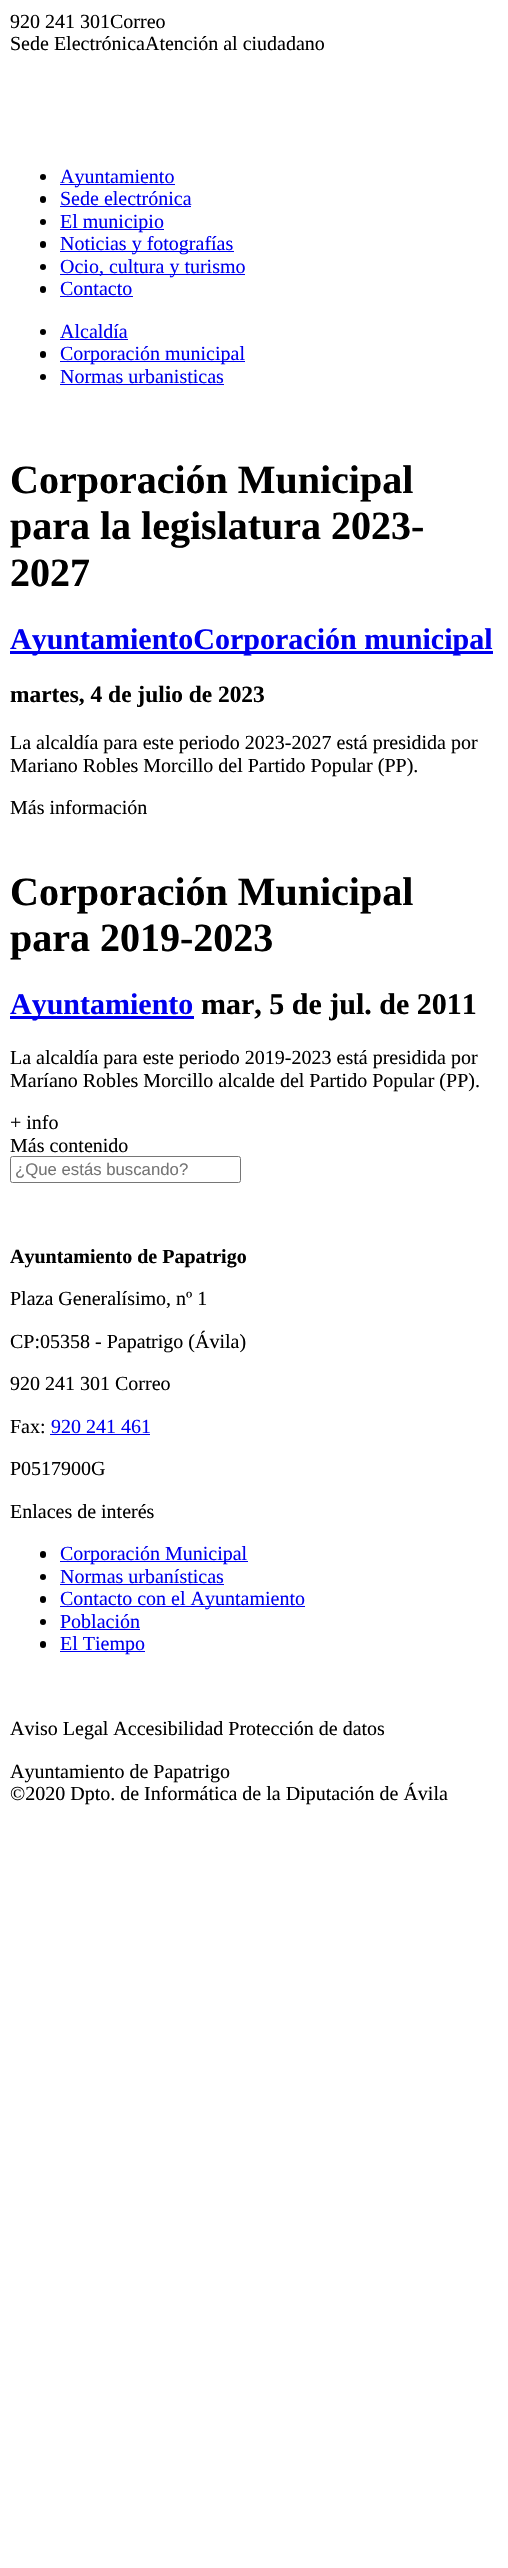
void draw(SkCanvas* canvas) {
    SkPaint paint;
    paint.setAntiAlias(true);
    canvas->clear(0xFFFFFFFF);
    SkFont font1(fontMgr->matchFamilyStyle("Liberation Serif", SkFontStyle::Normal()), 20);
    font1.setSubpixel(true);
    paint.setColor(0xFF000000);
    canvas->drawString("920 241 301Correo", 10, 28, font1, paint);
    canvas->drawString("Sede ElectrónicaAtención al ciudadano", 10, 50, font1, paint);
    canvas->drawCircle(43, 177, 3, paint);
    paint.setColor(0xFF0000EE);
    canvas->drawRect(SkRect::MakeXYWH(60, 184, 115, 1), paint);
    canvas->drawString("Ayuntamiento", 60, 183, font1, paint);
    paint.setColor(0xFF000000);
    canvas->drawRoundRect(SkRect::MakeXYWH(40, 196, 6, 7), 3, 3, paint);
    paint.setColor(0xFF0000EE);
    canvas->drawString("Sede electrónica", 60, 205, font1, paint);
    canvas->drawRect(SkRect::MakeXYWH(60, 206, 131, 1), paint);
    paint.setColor(0xFF000000);
    canvas->drawCircle(43, 222, 3, paint);
    paint.setColor(0xFF0000EE);
    canvas->drawRect(SkRect::MakeXYWH(60, 229, 104, 1), paint);
    canvas->drawString("El municipio", 60, 228, font1, paint);
    paint.setColor(0xFF000000);
    canvas->drawRoundRect(SkRect::MakeXYWH(40, 241, 6, 7), 3, 3, paint);
    paint.setColor(0xFF0000EE);
    canvas->drawRect(SkRect::MakeXYWH(60, 251, 174, 1), paint);
    canvas->drawString("Noticias y fotografías", 60, 250, font1, paint);
    paint.setColor(0xFF000000);
    canvas->drawCircle(43, 267, 3, paint);
    paint.setColor(0xFF0000EE);
    canvas->drawRect(SkRect::MakeXYWH(60, 274, 185, 1), paint);
    canvas->drawString("Ocio, cultura y turismo", 60, 273, font1, paint);
    paint.setColor(0xFF000000);
    canvas->drawRoundRect(SkRect::MakeXYWH(40, 286, 6, 7), 3, 3, paint);
    paint.setColor(0xFF0000EE);
    canvas->drawString("Contacto", 60, 295, font1, paint);
    canvas->drawRect(SkRect::MakeXYWH(60, 296, 73, 1), paint);
    paint.setColor(0xFF000000);
    canvas->drawCircle(43, 332, 3, paint);
    paint.setColor(0xFF0000EE);
    canvas->drawString("Alcaldía", 60, 338, font1, paint);
    canvas->drawRect(SkRect::MakeXYWH(60, 339, 68, 1), paint);
    paint.setColor(0xFF000000);
    canvas->drawRoundRect(SkRect::MakeXYWH(40, 351, 6, 7), 3, 3, paint);
    paint.setColor(0xFF0000EE);
    canvas->drawRect(SkRect::MakeXYWH(60, 361, 185, 1), paint);
    canvas->drawString("Corporación municipal", 60, 360, font1, paint);
    paint.setColor(0xFF000000);
    canvas->drawCircle(43, 377, 3, paint);
    paint.setColor(0xFF0000EE);
    canvas->drawString("Normas urbanisticas", 60, 383, font1, paint);
    canvas->drawRect(SkRect::MakeXYWH(60, 384, 164, 1), paint);
    SkFont font2(fontMgr->matchFamilyStyle("Liberation Serif", SkFontStyle::Bold()), 40);
    font2.setSubpixel(true);
    paint.setColor(0xFF000000);
    canvas->drawString("Corporación Municipal", 10, 493, font2, paint);
    canvas->drawString("para la legislatura 2023-", 10, 539, font2, paint);
    canvas->drawString("2027", 10, 586, font2, paint);
    paint.setColor(0xFF0000EE);
    canvas->drawRect(SkRect::MakeXYWH(10, 651, 483, 3), paint);
    SkFont font3(fontMgr->matchFamilyStyle("Liberation Serif", SkFontStyle::Bold()), 30);
    font3.setSubpixel(true);
    canvas->drawString("AyuntamientoCorporación municipal", 10, 649, font3, paint);
    SkFont font4(fontMgr->matchFamilyStyle("Liberation Serif", SkFontStyle::Bold()), 23.4f);
    font4.setSubpixel(true);
    paint.setColor(0xFF000000);
    canvas->drawString("martes, 4 de julio de 2023", 10, 702, font4, paint);
    canvas->drawString("La alcaldía para este periodo 2023-2027 está presidida por", 10, 749, font1, paint);
    canvas->drawString("Mariano Robles Morcillo del Partido Popular (PP).", 10, 772, font1, paint);
    canvas->drawString("Más información", 10, 814, font1, paint);
    canvas->drawString("Corporación Municipal", 10, 905, font2, paint);
    canvas->drawString("para 2019-2023", 10, 951, font2, paint);
    paint.setColor(0xFF0000EE);
    canvas->drawRect(SkRect::MakeXYWH(10, 1016, 184, 3), paint);
    canvas->drawString("Ayuntamiento", 10, 1014, font3, paint);
    paint.setColor(0xFF000000);
    canvas->drawString("mar, 5 de jul. de 2011", 201, 1014, font3, paint);
    canvas->drawString("La alcaldía para este periodo 2019-2023 está presidida por", 10, 1064, font1, paint);
    canvas->drawString("Maríano Robles Morcillo alcalde del Partido Popular (PP).", 10, 1087, font1, paint);
    canvas->drawString("+ info", 10, 1129, font1, paint);
    canvas->drawString("Más contenido", 10, 1152, font1, paint);
    paint.setStyle(SkPaint::kStroke_Style);
    paint.setStrokeWidth(1);
    paint.setColor(0xFF767676);
    canvas->drawRoundRect(SkRect::MakeXYWH(10.5f, 1156.5f, 230, 26), 2, 2, paint);
    SkFont font5(fontMgr->matchFamilyStyle("Liberation Sans", SkFontStyle::Normal()), 16.75f);
    font5.setSubpixel(true);
    paint.setStyle(SkPaint::kFill_Style);
    paint.setColor(0xFF757575);
    canvas->drawString("¿Que estás buscando?", 15, 1175, font5, paint);
    SkFont font6(fontMgr->matchFamilyStyle("Liberation Serif", SkFontStyle::Bold()), 20);
    font6.setSubpixel(true);
    paint.setColor(0xFF000000);
    canvas->drawString("Ayuntamiento de Papatrigo", 10, 1263, font6, paint);
    canvas->drawString("Plaza Generalísimo, nº 1", 10, 1305, font1, paint);
    canvas->drawString("CP:05358 - Papatrigo (Ávila)", 10, 1348, font1, paint);
    canvas->drawString("920 241 301 Correo", 10, 1390, font1, paint);
    canvas->drawString("Fax:", 10, 1433, font1, paint);
    paint.setColor(0xFF0000EE);
    canvas->drawString("920 241 461", 51, 1433, font1, paint);
    canvas->drawRect(SkRect::MakeXYWH(50, 1434, 100, 1), paint);
    paint.setColor(0xFF000000);
    canvas->drawString("P0517900G", 10, 1475, font1, paint);
    canvas->drawString("Enlaces de interés", 10, 1518, font1, paint);
    canvas->drawRoundRect(SkRect::MakeXYWH(40, 1551, 6, 7), 3, 3, paint);
    paint.setColor(0xFF0000EE);
    canvas->drawRect(SkRect::MakeXYWH(60, 1561, 188, 1), paint);
    canvas->drawString("Corporación Municipal", 60, 1560, font1, paint);
    paint.setColor(0xFF000000);
    canvas->drawCircle(43, 1577, 3, paint);
    paint.setColor(0xFF0000EE);
    canvas->drawString("Normas urbanísticas", 60, 1583, font1, paint);
    canvas->drawRect(SkRect::MakeXYWH(60, 1584, 164, 1), paint);
    paint.setColor(0xFF000000);
    canvas->drawRoundRect(SkRect::MakeXYWH(40, 1596, 6, 7), 3, 3, paint);
    paint.setColor(0xFF0000EE);
    canvas->drawRect(SkRect::MakeXYWH(60, 1606, 245, 1), paint);
    canvas->drawString("Contacto con el Ayuntamiento", 60, 1605, font1, paint);
    paint.setColor(0xFF000000);
    canvas->drawCircle(43, 1622, 3, paint);
    paint.setColor(0xFF0000EE);
    canvas->drawString("Población", 60, 1628, font1, paint);
    canvas->drawRect(SkRect::MakeXYWH(60, 1629, 80, 1), paint);
    paint.setColor(0xFF000000);
    canvas->drawRoundRect(SkRect::MakeXYWH(40, 1641, 6, 7), 3, 3, paint);
    paint.setColor(0xFF0000EE);
    canvas->drawRect(SkRect::MakeXYWH(60, 1651, 85, 1), paint);
    canvas->drawString("El Tiempo", 60, 1650, font1, paint);
    paint.setColor(0xFF000000);
    canvas->drawString("Aviso Legal Accesibilidad Protección de datos", 10, 1735, font1, paint);
    canvas->drawString("Ayuntamiento de Papatrigo", 10, 1778, font1, paint);
    canvas->drawString("©2020 Dpto. de Informática de la Diputación de Ávila", 10, 1800, font1, paint);
}
